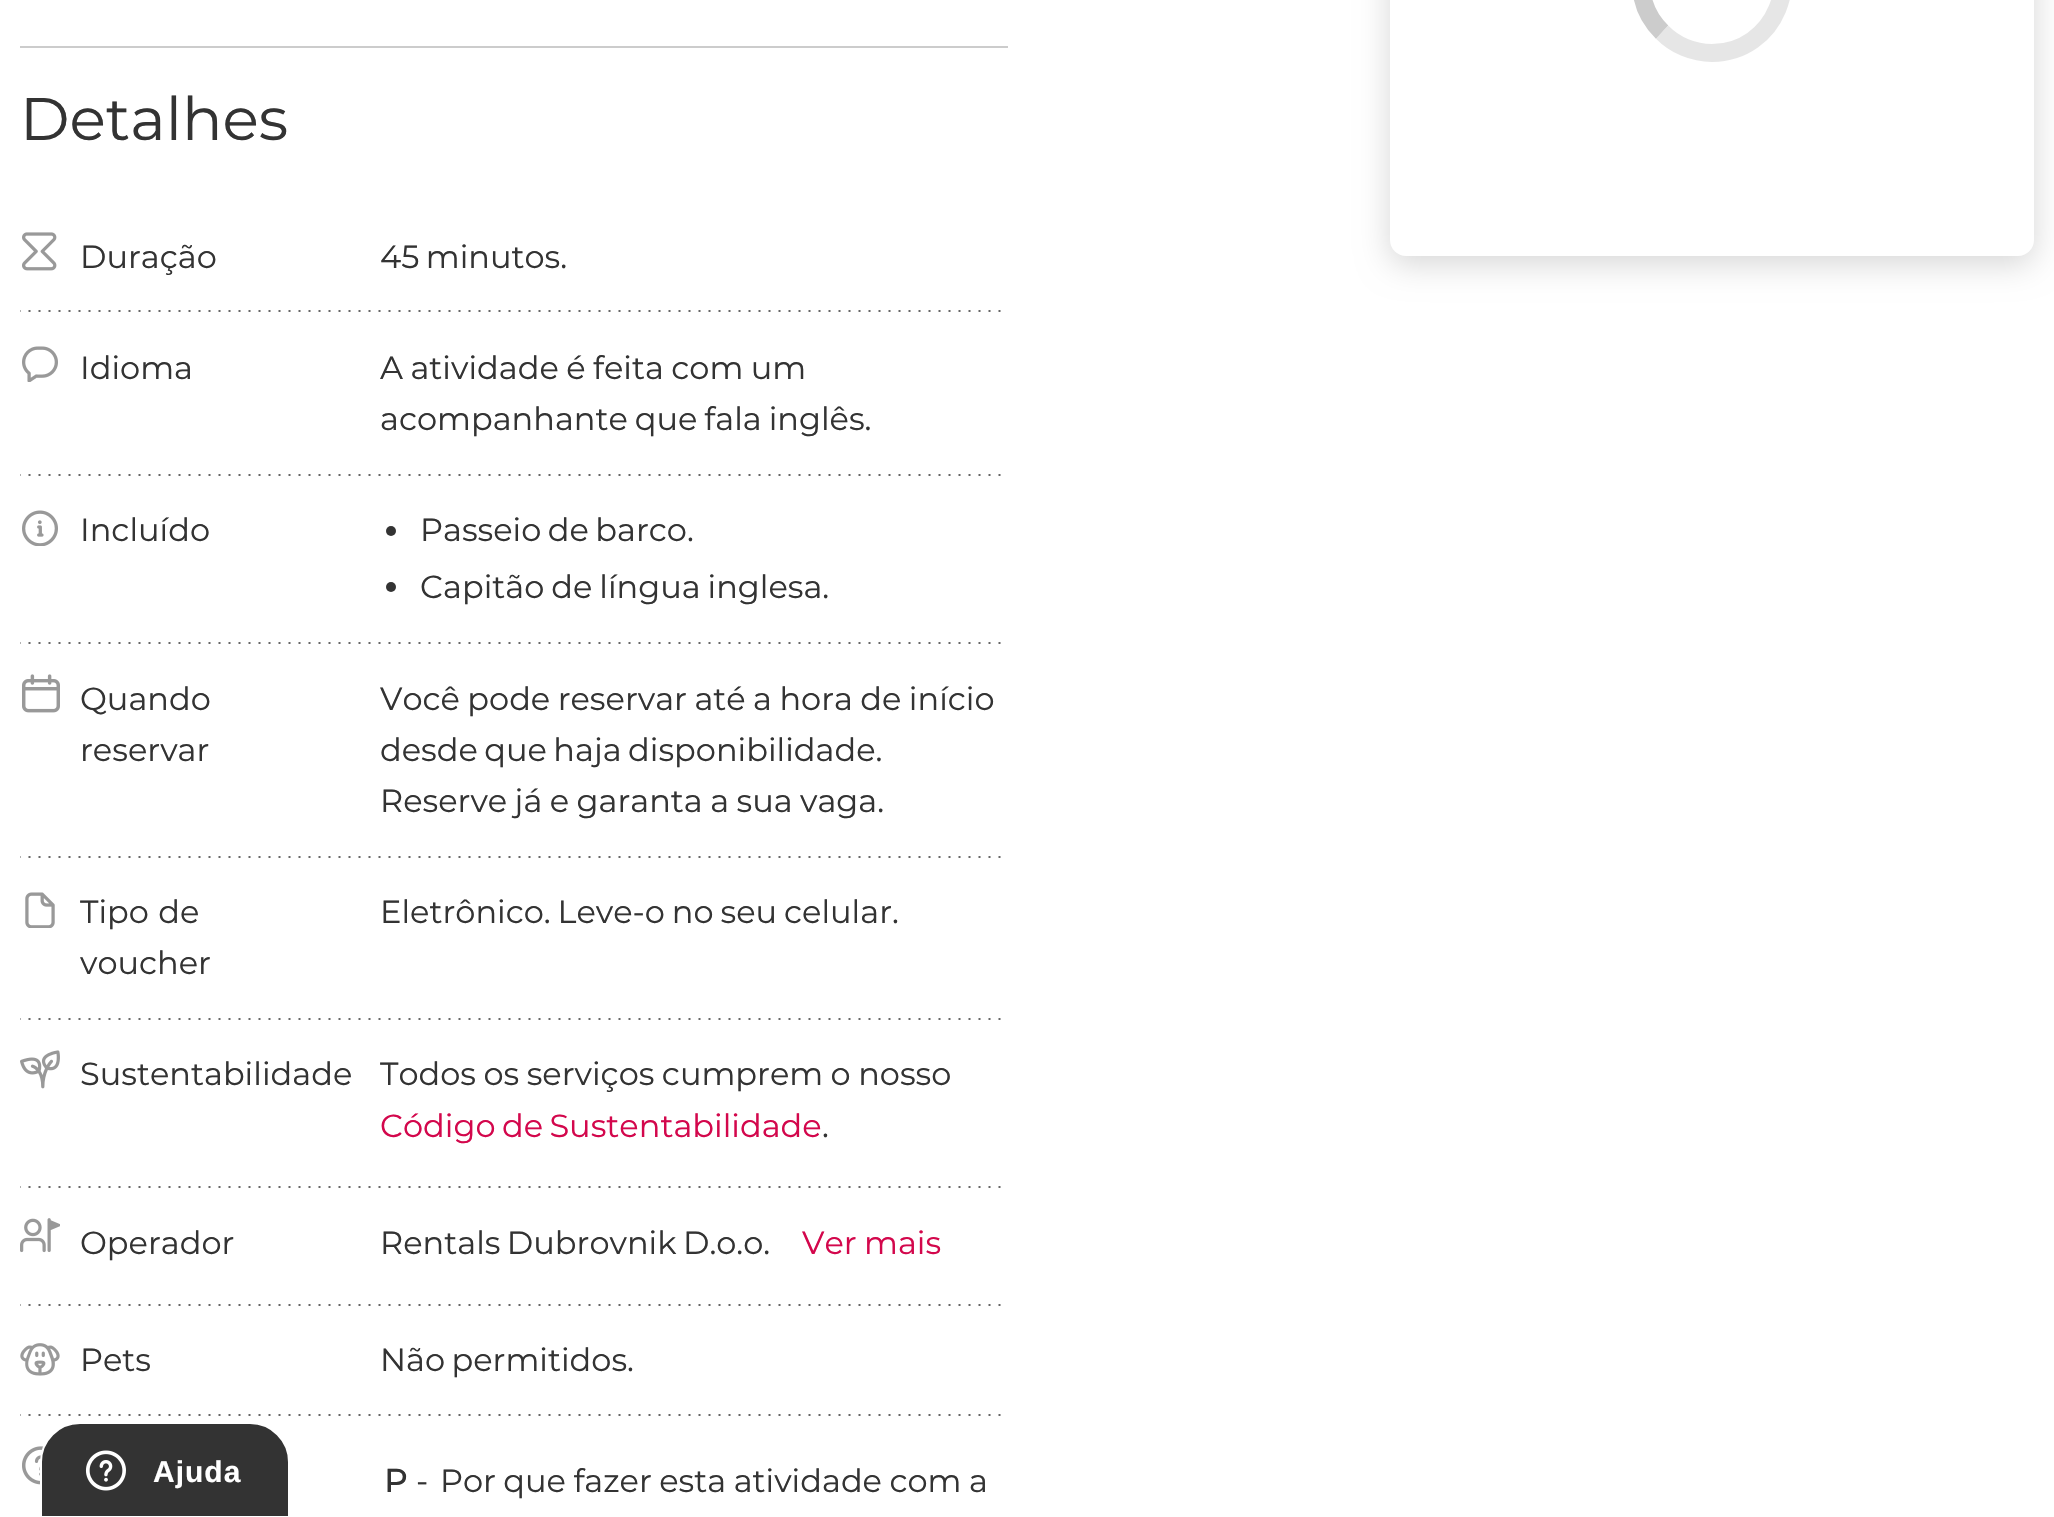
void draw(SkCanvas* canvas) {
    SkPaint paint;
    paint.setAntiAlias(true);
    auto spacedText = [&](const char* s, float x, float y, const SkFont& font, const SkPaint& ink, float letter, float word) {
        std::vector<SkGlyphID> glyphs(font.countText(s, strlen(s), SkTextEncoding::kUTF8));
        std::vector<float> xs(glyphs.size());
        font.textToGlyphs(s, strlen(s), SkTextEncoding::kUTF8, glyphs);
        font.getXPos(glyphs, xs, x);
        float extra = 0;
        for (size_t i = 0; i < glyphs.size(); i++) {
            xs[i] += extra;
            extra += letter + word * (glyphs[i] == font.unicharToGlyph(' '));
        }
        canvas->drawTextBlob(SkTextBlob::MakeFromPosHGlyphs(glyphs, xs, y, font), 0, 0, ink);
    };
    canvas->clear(0xFFFFFFFF);
    paint.setColor(0xFFCCCCCC);
    canvas->drawRect(SkRect::MakeXYWH(20, 46, 988, 2), paint);
    SkFont font1(fontMgr->matchFamilyStyle("Montserrat", SkFontStyle::Normal()), 60);
    font1.setSubpixel(true);
    paint.setColor(0xFF333333);
    canvas->drawString("Detalhes", 20, 140, font1, paint);
    canvas->drawImageRect(SkImages::DeferredFromEncodedData(SkData::MakeFromFileName("img1.png")), SkRect::MakeXYWH(20, 310, 981, 2), SkSamplingOptions());
    canvas->drawImageRect(SkImages::DeferredFromEncodedData(SkData::MakeFromFileName("img2.png")), SkRect::MakeXYWH(22, 232, 35, 39), SkSamplingOptions());
    SkFont font2(fontMgr->matchFamilyStyle("Montserrat", SkFontStyle::Normal()), 32);
    font2.setSubpixel(true);
    canvas->drawString("Duração", 80, 268, font2, paint);
    spacedText("45 minutos.", 380, 268, font2, paint, 0, -2);
    canvas->drawImageRect(SkImages::DeferredFromEncodedData(SkData::MakeFromFileName("img1.png")), SkRect::MakeXYWH(20, 474, 981, 2), SkSamplingOptions());
    canvas->drawImageRect(SkImages::DeferredFromEncodedData(SkData::MakeFromFileName("img3.png")), SkRect::MakeXYWH(22, 346, 36, 36), SkSamplingOptions());
    canvas->drawString("Idioma", 80, 379, font2, paint);
    spacedText("A atividade é feita com um", 380, 379, font2, paint, 0, -1);
    spacedText("acompanhante que fala inglês.", 380, 430, font2, paint, 0, -1.5f);
    canvas->drawImageRect(SkImages::DeferredFromEncodedData(SkData::MakeFromFileName("img1.png")), SkRect::MakeXYWH(20, 642, 981, 2), SkSamplingOptions());
    canvas->drawImageRect(SkImages::DeferredFromEncodedData(SkData::MakeFromFileName("img4.png")), SkRect::MakeXYWH(22, 510, 36, 36), SkSamplingOptions());
    canvas->drawString("Incluído", 80, 541, font2, paint);
    canvas->drawCircle(391, 531, 5, paint);
    spacedText("Passeio de barco.", 420, 541, font2, paint, 0, -2);
    canvas->drawCircle(391, 587, 5, paint);
    spacedText("Capitão de língua inglesa.", 420, 598, font2, paint, 0, -1.5f);
    canvas->drawImageRect(SkImages::DeferredFromEncodedData(SkData::MakeFromFileName("img1.png")), SkRect::MakeXYWH(20, 856, 981, 2), SkSamplingOptions());
    canvas->drawImageRect(SkImages::DeferredFromEncodedData(SkData::MakeFromFileName("img5.png")), SkRect::MakeXYWH(22, 674, 38, 39), SkSamplingOptions());
    canvas->drawString("Quando", 80, 710, font2, paint);
    canvas->drawString("reservar", 80, 761, font2, paint);
    spacedText("Você pode reservar até a hora de início", 380, 710, font2, paint, 0, -1);
    spacedText("desde que haja disponibilidade.", 380, 761, font2, paint, 0, -2);
    spacedText("Reserve já e garanta a sua vaga.", 380, 812, font2, paint, 0, -1);
    canvas->drawImageRect(SkImages::DeferredFromEncodedData(SkData::MakeFromFileName("img1.png")), SkRect::MakeXYWH(20, 1018, 981, 2), SkSamplingOptions());
    canvas->drawImageRect(SkImages::DeferredFromEncodedData(SkData::MakeFromFileName("img6.png")), SkRect::MakeXYWH(25, 892, 30, 36), SkSamplingOptions());
    spacedText("Tipo de", 80, 923, font2, paint, 0, 1);
    canvas->drawString("voucher", 80, 974, font2, paint);
    spacedText("Eletrônico. Leve-o no seu celular.", 380, 923, font2, paint, 0, -1.5f);
    canvas->drawImageRect(SkImages::DeferredFromEncodedData(SkData::MakeFromFileName("img1.png")), SkRect::MakeXYWH(20, 1186, 981, 2), SkSamplingOptions());
    canvas->drawImageRect(SkImages::DeferredFromEncodedData(SkData::MakeFromFileName("img7.png")), SkRect::MakeXYWH(20, 1050, 40, 39), SkSamplingOptions());
    canvas->drawString("Sustentabilidade", 80, 1085, font2, paint);
    spacedText("Todos os serviços cumprem o nosso", 380, 1085, font2, paint, 0, -1);
    paint.setColor(0xFFD3074C);
    spacedText("Código de Sustentabilidade", 380, 1137, font2, paint, 0, -2);
    paint.setColor(0xFF333333);
    canvas->drawString(".", 822, 1137, font2, paint);
    canvas->drawImageRect(SkImages::DeferredFromEncodedData(SkData::MakeFromFileName("img1.png")), SkRect::MakeXYWH(20, 1304, 981, 2), SkSamplingOptions());
    canvas->drawImageRect(SkImages::DeferredFromEncodedData(SkData::MakeFromFileName("img8.png")), SkRect::MakeXYWH(20, 1218, 40, 35), SkSamplingOptions());
    canvas->drawString("Operador", 80, 1254, font2, paint);
    spacedText("Rentals Dubrovnik D.o.o.", 380, 1254, font2, paint, 0, -2);
    paint.setColor(0xFFD3074C);
    spacedText("Ver mais", 802, 1254, font2, paint, 0, -1);
    canvas->drawImageRect(SkImages::DeferredFromEncodedData(SkData::MakeFromFileName("img1.png")), SkRect::MakeXYWH(20, 1414, 981, 2), SkSamplingOptions());
    canvas->drawImageRect(SkImages::DeferredFromEncodedData(SkData::MakeFromFileName("img9.png")), SkRect::MakeXYWH(20, 1343, 40, 33), SkSamplingOptions());
    paint.setColor(0xFF333333);
    canvas->drawString("Pets", 80, 1371, font2, paint);
    spacedText("Não permitidos.", 380, 1371, font2, paint, 0, -2);
    canvas->drawImageRect(SkImages::DeferredFromEncodedData(SkData::MakeFromFileName("img10.png")), SkRect::MakeXYWH(22, 1446, 22, 39), SkSamplingOptions());
    SkFont font3(fontMgr->matchFamilyStyle("Montserrat", SkFontStyle::Bold()), 32);
    font3.setSubpixel(true);
    canvas->drawString("P", 384, 1492, font3, paint);
    canvas->drawString("-", 416, 1492, font2, paint);
    spacedText("Por que fazer esta atividade com a", 440, 1492, font2, paint, 0, -1);
    paint.setColor(0x29000000);
    paint.setMaskFilter(SkMaskFilter::MakeBlur(kNormal_SkBlurStyle, 16));
    canvas->drawRoundRect(SkRect::MakeXYWH(1390, -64, 644, 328), 16, 16, paint);
    paint.setMaskFilter(nullptr);
    paint.setColor(0xFFFFFFFF);
    canvas->drawRoundRect(SkRect::MakeXYWH(1390, -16, 644, 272), 16, 16, paint);
    paint.setStyle(SkPaint::kStroke_Style);
    paint.setStrokeWidth(18);
    paint.setColor(0xFFE6E6E6);
    canvas->drawPath(SkPathBuilder().moveTo(1662, -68).cubicTo(1678.5f, -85, 1703, -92, 1726, -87.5f).cubicTo(1739.5f, -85, 1752.5f, -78, 1762, -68).cubicTo(1806.5f, -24, 1775, 53, 1712, 53).cubicTo(1693.5f, 53, 1675, 45.5f, 1662, 32).detach(), paint);
    paint.setColor(0x33000000);
    canvas->drawPath(SkPathBuilder().moveTo(1662, 32).cubicTo(1634, 4.5f, 1634, -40.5f, 1662, -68).detach(), paint);
    paint.setStyle(SkPaint::kFill_Style);
    paint.setColor(0xFF333333);
    canvas->drawPath(SkPathBuilder().moveTo(80, 1423).lineTo(250, 1423).cubicTo(271.5f, 1423, 289, 1440.5f, 289, 1462).lineTo(289, 1517).lineTo(41, 1517).lineTo(41, 1462).cubicTo(41, 1440.5f, 58.5f, 1423, 80, 1423).close().detach(), paint);
    paint.setStyle(SkPaint::kStroke_Style);
    paint.setStrokeWidth(2);
    paint.setColor(0xFFFFFFFF);
    canvas->drawPath(SkPathBuilder().moveTo(80, 1423).lineTo(250, 1423).cubicTo(271.5f, 1423, 289, 1440.5f, 289, 1462).lineTo(289, 1517).lineTo(41, 1517).lineTo(41, 1462).cubicTo(41, 1440.5f, 58.5f, 1423, 80, 1423).close().detach(), paint);
    canvas->drawImageRect(SkImages::DeferredFromEncodedData(SkData::MakeFromFileName("img11.png")), SkRect::MakeXYWH(85, 1450, 41, 41), SkSamplingOptions());
    SkFont font4(fontMgr->matchFamilyStyle("Liberation Sans", SkFontStyle::Bold()), 30);
    font4.setSubpixel(true);
    paint.setStyle(SkPaint::kFill_Style);
    spacedText("Ajuda", 153, 1482, font4, paint, 1, 0);
}
